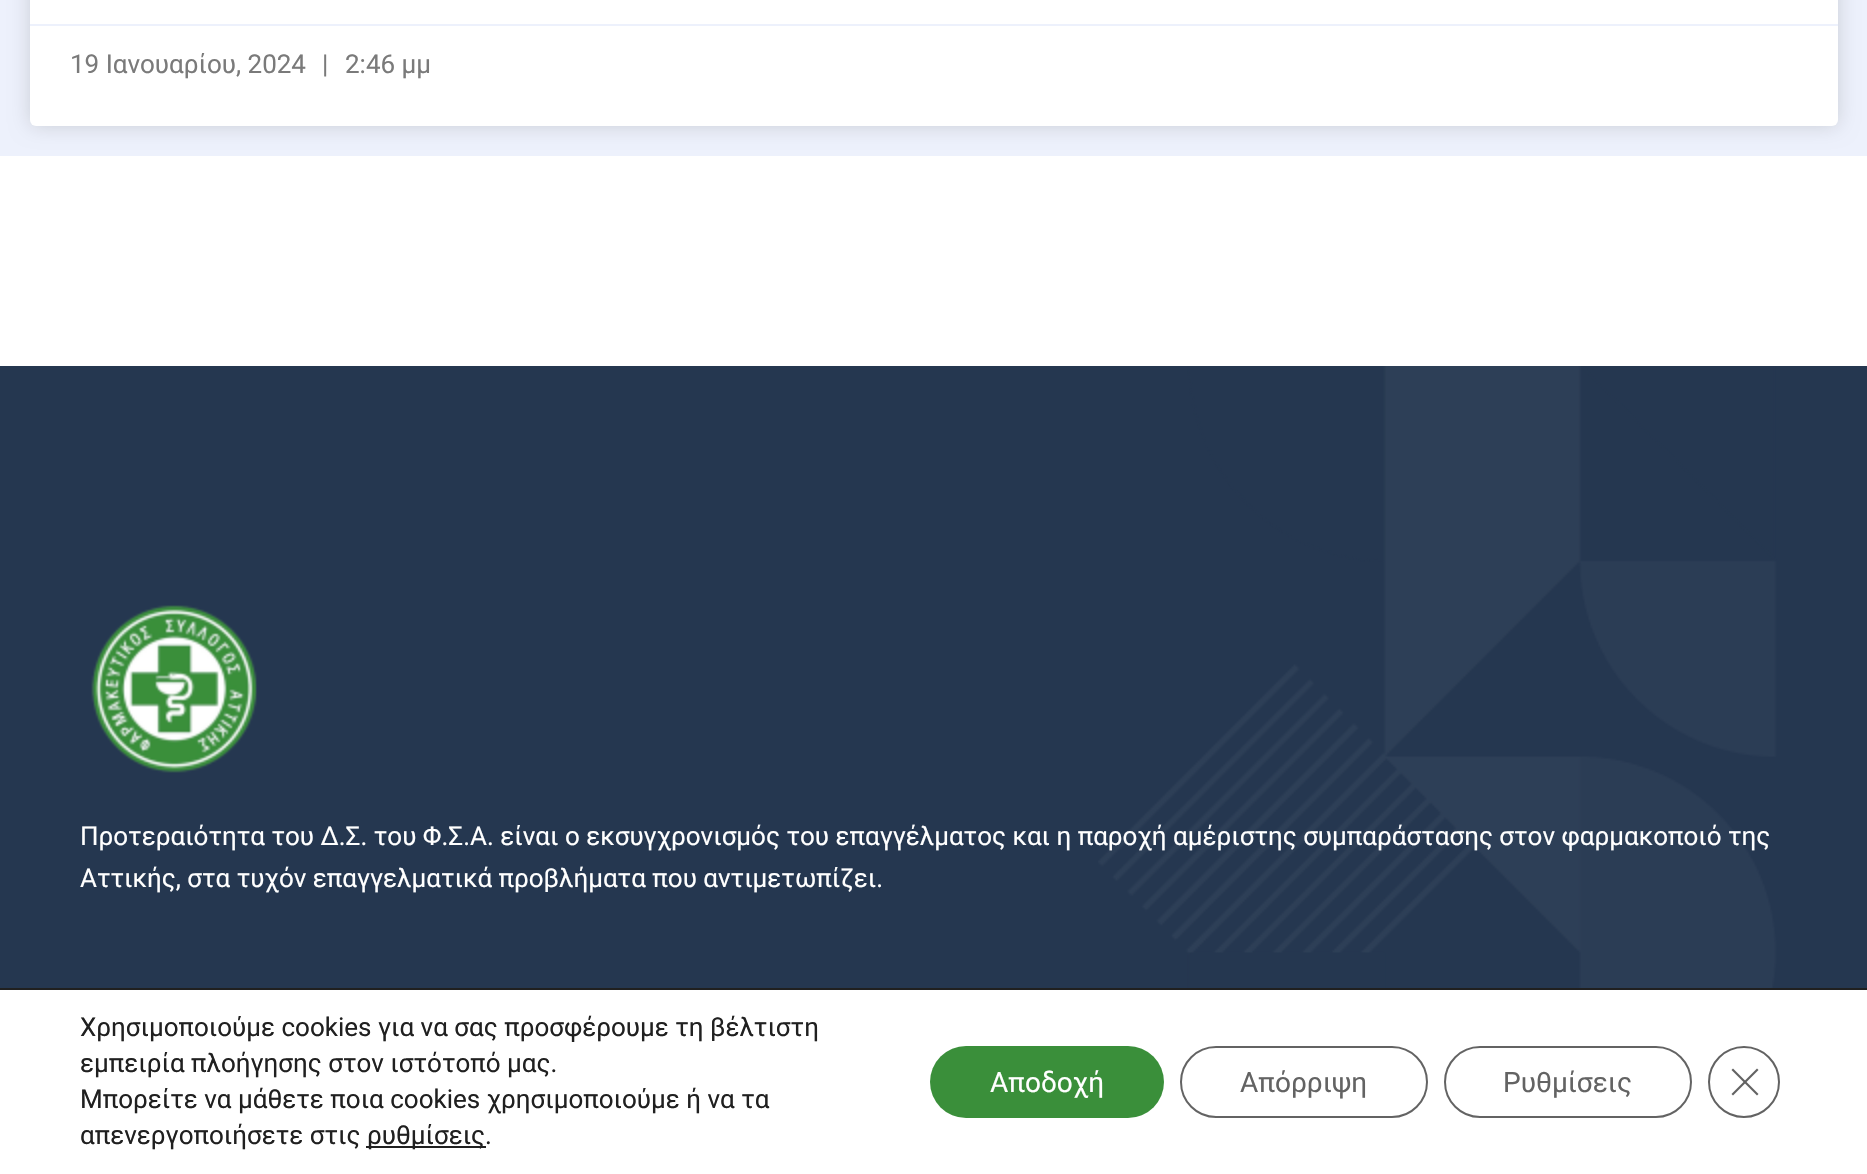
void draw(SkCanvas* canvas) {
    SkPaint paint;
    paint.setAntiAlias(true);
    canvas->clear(0xFFFFFFFF);
    paint.setColor(0xFFEDF1FC);
    canvas->drawRect(SkRect::MakeXYWH(0, 0, 1867, 156), paint);
    paint.setColor(0x26000000);
    paint.setMaskFilter(SkMaskFilter::MakeBlur(kNormal_SkBlurStyle, 10));
    canvas->drawRoundRect(SkRect::MakeXYWH(30, -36, 1808, 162), 6, 6, paint);
    paint.setMaskFilter(nullptr);
    paint.setColor(0xFFFFFFFF);
    canvas->drawRoundRect(SkRect::MakeXYWH(30, -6, 1808, 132), 6, 6, paint);
    paint.setColor(0xFFEDF1FC);
    canvas->drawRect(SkRect::MakeXYWH(30, 24, 1808, 2), paint);
    SkFont font1(fontMgr->matchFamilyStyle("Roboto", SkFontStyle::Normal()), 26);
    font1.setSubpixel(true);
    paint.setColor(0xFF7A7A7A);
    canvas->drawString("19 Ιανουαρίου, 2024", 70, 73, font1, paint);
    canvas->drawString("|", 322, 73, font1, paint);
    canvas->drawString("2:46 μμ", 345, 73, font1, paint);
    paint.setColor(0xFF253750);
    canvas->drawRect(SkRect::MakeXYWH(0, 366, 1867, 622), paint);
    canvas->drawImageRect(SkImages::DeferredFromEncodedData(SkData::MakeFromFileName("img1.png")), SkRect::MakeXYWH(1098, 366, 679, 622), SkSamplingOptions());
    canvas->drawImageRect(SkImages::DeferredFromEncodedData(SkData::MakeFromFileName("img2.png")), SkRect::MakeXYWH(91, 605, 166, 168), SkSamplingOptions());
    paint.setColor(0xFFFFFFFF);
    canvas->drawString("Προτεραιότητα του Δ.Σ. του Φ.Σ.Α. είναι ο εκσυγχρονισμός του επαγγέλματος και η παροχή αμέριστης συμπαράστασης στον φαρμακοποιό της", 80, 845, font1, paint);
    canvas->drawString("Αττικής, στα τυχόν επαγγελματικά προβλήματα που αντιμετωπίζει.", 80, 887, font1, paint);
    paint.setColor(0xFF202020);
    canvas->drawRect(SkRect::MakeXYWH(0, 988, 1867, 2), paint);
    canvas->drawString("Χρησιμοποιούμε cookies για να σας προσφέρουμε τη βέλτιστη", 80, 1036, font1, paint);
    canvas->drawString("εμπειρία πλοήγησης στον ιστότοπό μας.", 80, 1072, font1, paint);
    canvas->drawString("Μπορείτε να μάθετε ποια cookies χρησιμοποιούμε ή να τα", 80, 1108, font1, paint);
    canvas->drawString("απενεργοποιήσετε στις", 80, 1144, font1, paint);
    canvas->drawRect(SkRect::MakeXYWH(366, 1146, 120, 2), paint);
    canvas->drawString("ρυθμίσεις.", 367, 1144, font1, paint);
    paint.setColor(0xFF3A8F3A);
    canvas->drawRoundRect(SkRect::MakeXYWH(930, 1046, 234, 72), 36, 36, paint);
    SkFont font2(fontMgr->matchFamilyStyle("Roboto", SkFontStyle::Normal()), 28);
    font2.setSubpixel(true);
    paint.setColor(0xFFFFFFFF);
    canvas->drawString("Αποδοχή", 990, 1092, font2, paint);
    paint.setStyle(SkPaint::kStroke_Style);
    paint.setStrokeWidth(2);
    paint.setColor(0xFF636363);
    canvas->drawRoundRect(SkRect::MakeXYWH(1181, 1047, 246, 70), 35, 35, paint);
    paint.setStyle(SkPaint::kFill_Style);
    canvas->drawString("Απόρριψη", 1240, 1092, font2, paint);
    paint.setStyle(SkPaint::kStroke_Style);
    canvas->drawRoundRect(SkRect::MakeXYWH(1445, 1047, 246, 70), 35, 35, paint);
    paint.setStyle(SkPaint::kFill_Style);
    canvas->drawString("Ρυθμίσεις", 1503, 1092, font2, paint);
    paint.setStyle(SkPaint::kStroke_Style);
    paint.setColor(0xFF626262);
    canvas->drawCircle(1744, 1082, 35, paint);
    paint.setStyle(SkPaint::kFill_Style);
    canvas->drawPath(SkPathBuilder().moveTo(1757, 1068.5f).lineTo(1758.5f, 1070).lineTo(1733, 1095.5f).lineTo(1731.5f, 1094).close().detach(), paint);
    canvas->drawPath(SkPathBuilder().moveTo(1731.5f, 1070).lineTo(1733, 1068.5f).lineTo(1758.5f, 1094).lineTo(1757, 1095.5f).close().detach(), paint);
}
